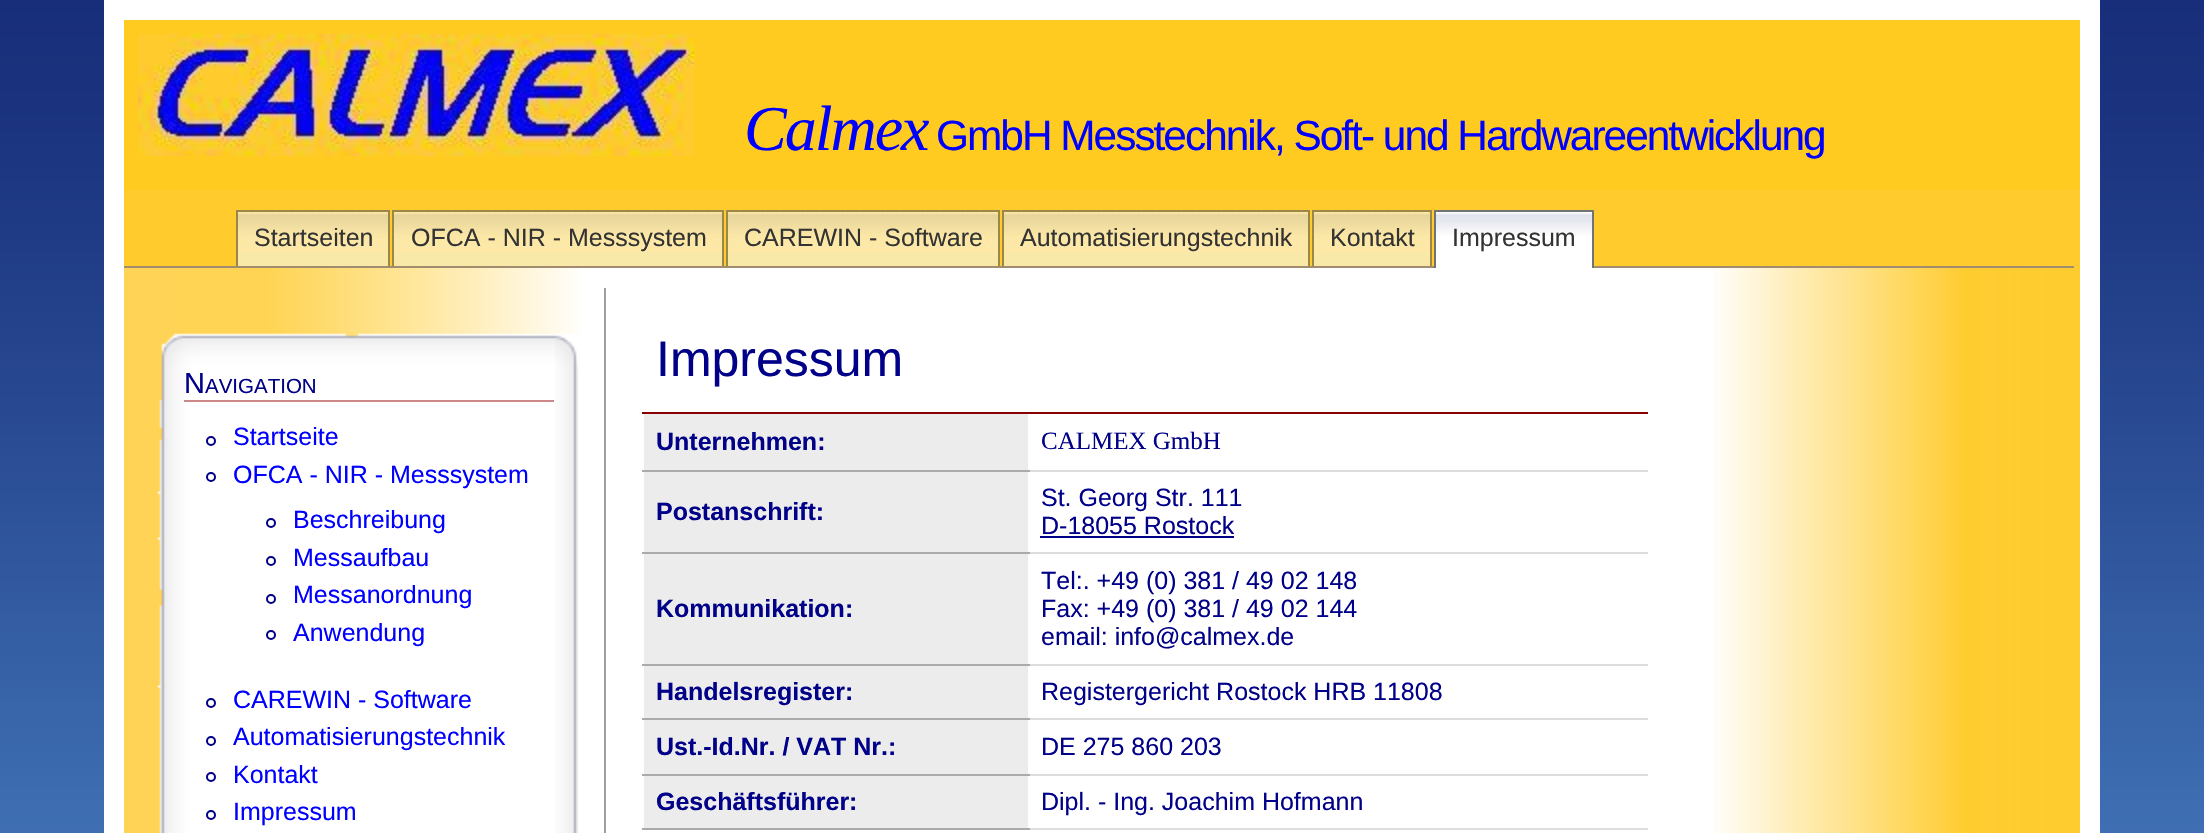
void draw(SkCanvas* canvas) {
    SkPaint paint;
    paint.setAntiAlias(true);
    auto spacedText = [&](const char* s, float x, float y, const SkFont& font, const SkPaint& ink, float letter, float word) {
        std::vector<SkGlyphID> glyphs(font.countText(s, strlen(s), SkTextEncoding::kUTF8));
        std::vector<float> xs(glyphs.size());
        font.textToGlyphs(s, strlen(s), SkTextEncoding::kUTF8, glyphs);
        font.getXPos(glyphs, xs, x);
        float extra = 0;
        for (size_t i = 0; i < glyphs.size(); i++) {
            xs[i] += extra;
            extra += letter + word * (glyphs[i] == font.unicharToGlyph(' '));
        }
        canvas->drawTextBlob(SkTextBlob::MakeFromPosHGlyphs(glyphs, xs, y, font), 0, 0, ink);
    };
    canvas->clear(0xFFFFFFFF);
    canvas->drawImageRect(SkImages::DeferredFromEncodedData(SkData::MakeFromFileName("img1.png")), SkRect::MakeXYWH(0, 0, 2204, 833), SkSamplingOptions());
    paint.setColor(0xFFFFFFFF);
    canvas->drawRect(SkRect::MakeXYWH(580, 268, 1133, 565), paint);
    canvas->drawImageRect(SkImages::DeferredFromEncodedData(SkData::MakeFromFileName("img2.png")), SkRect::MakeXYWH(1713, 190, 367, 643), SkSamplingOptions());
    paint.setStyle(SkPaint::kStroke_Style);
    paint.setStrokeWidth(20);
    canvas->drawRect(SkRect::MakeXYWH(114, 10, 1976, 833), paint);
    paint.setStyle(SkPaint::kFill_Style);
    paint.setColor(0xFFFFCB20);
    canvas->drawRect(SkRect::MakeXYWH(124, 20, 1956, 170), paint);
    canvas->drawImageRect(SkImages::DeferredFromEncodedData(SkData::MakeFromFileName("img3.png")), SkRect::MakeXYWH(138, 34, 556, 122), SkSamplingOptions());
    SkFont font1(fontMgr->matchFamilyStyle("Liberation Serif", SkFontStyle::Italic()), 64);
    font1.setSubpixel(true);
    paint.setColor(0xFF0000FF);
    spacedText("Calmex", 744, 150, font1, paint, -2, 0);
    SkFont font2(fontMgr->matchFamilyStyle("Liberation Sans", SkFontStyle::Normal()), 42.4f);
    font2.setSubpixel(true);
    spacedText("GmbH Messtechnik, Soft- und Hardwareentwicklung", 936, 150, font2, paint, -2, 0);
    paint.setColor(0xFFFFCB2D);
    canvas->drawRect(SkRect::MakeXYWH(124, 190, 1950, 76), paint);
    paint.setColor(0xFFA18C6F);
    canvas->drawRect(SkRect::MakeXYWH(124, 266, 1950, 2), paint);
    paint.setColor(0xFFF9E9A9);
    canvas->drawRect(SkRect::MakeXYWH(238, 252, 150, 14), paint);
    canvas->drawImageRect(SkImages::DeferredFromEncodedData(SkData::MakeFromFileName("img4.png")), SkRect::MakeXYWH(238, 212, 150, 40), SkSamplingOptions());
    paint.setColor(0xFF9B8748);
    canvas->drawRect(SkRect::MakeXYWH(236, 210, 154, 2), paint);
    canvas->drawRect(SkRect::MakeXYWH(388, 210, 2, 56), paint);
    canvas->drawRect(SkRect::MakeXYWH(236, 210, 2, 56), paint);
    SkFont font3(fontMgr->matchFamilyStyle("Liberation Sans", SkFontStyle::Normal()), 25);
    font3.setSubpixel(true);
    paint.setColor(0xFF333333);
    canvas->drawString("Startseiten", 254, 246, font3, paint);
    paint.setColor(0xFFF9E9A9);
    canvas->drawRect(SkRect::MakeXYWH(394, 252, 328, 14), paint);
    canvas->drawImageRect(SkImages::DeferredFromEncodedData(SkData::MakeFromFileName("img5.png")), SkRect::MakeXYWH(394, 212, 328, 40), SkSamplingOptions());
    paint.setColor(0xFF9B8748);
    canvas->drawRect(SkRect::MakeXYWH(392, 210, 332, 2), paint);
    canvas->drawRect(SkRect::MakeXYWH(722, 210, 2, 56), paint);
    canvas->drawRect(SkRect::MakeXYWH(392, 210, 2, 56), paint);
    paint.setColor(0xFF333333);
    canvas->drawString("OFCA - NIR - Messsystem", 411, 246, font3, paint);
    paint.setColor(0xFFF9E9A9);
    canvas->drawRect(SkRect::MakeXYWH(728, 252, 270, 14), paint);
    canvas->drawImageRect(SkImages::DeferredFromEncodedData(SkData::MakeFromFileName("img6.png")), SkRect::MakeXYWH(728, 212, 270, 40), SkSamplingOptions());
    paint.setColor(0xFF9B8748);
    canvas->drawRect(SkRect::MakeXYWH(726, 210, 274, 2), paint);
    canvas->drawRect(SkRect::MakeXYWH(998, 210, 2, 56), paint);
    canvas->drawRect(SkRect::MakeXYWH(726, 210, 2, 56), paint);
    paint.setColor(0xFF333333);
    canvas->drawString("CAREWIN - Software", 744, 246, font3, paint);
    paint.setColor(0xFFF9E9A9);
    canvas->drawRect(SkRect::MakeXYWH(1004, 252, 304, 14), paint);
    canvas->drawImageRect(SkImages::DeferredFromEncodedData(SkData::MakeFromFileName("img7.png")), SkRect::MakeXYWH(1004, 212, 304, 40), SkSamplingOptions());
    paint.setColor(0xFF9B8748);
    canvas->drawRect(SkRect::MakeXYWH(1002, 210, 308, 2), paint);
    canvas->drawRect(SkRect::MakeXYWH(1308, 210, 2, 56), paint);
    canvas->drawRect(SkRect::MakeXYWH(1002, 210, 2, 56), paint);
    paint.setColor(0xFF333333);
    canvas->drawString("Automatisierungstechnik", 1020, 246, font3, paint);
    paint.setColor(0xFFF9E9A9);
    canvas->drawRect(SkRect::MakeXYWH(1314, 252, 116, 14), paint);
    canvas->drawImageRect(SkImages::DeferredFromEncodedData(SkData::MakeFromFileName("img8.png")), SkRect::MakeXYWH(1314, 212, 116, 40), SkSamplingOptions());
    paint.setColor(0xFF9B8748);
    canvas->drawRect(SkRect::MakeXYWH(1312, 210, 120, 2), paint);
    canvas->drawRect(SkRect::MakeXYWH(1430, 210, 2, 56), paint);
    canvas->drawRect(SkRect::MakeXYWH(1312, 210, 2, 56), paint);
    paint.setColor(0xFF333333);
    canvas->drawString("Kontakt", 1330, 246, font3, paint);
    paint.setColor(0xFFFFFFFF);
    canvas->drawRect(SkRect::MakeXYWH(1436, 212, 156, 56), paint);
    canvas->drawImageRect(SkImages::DeferredFromEncodedData(SkData::MakeFromFileName("img9.png")), SkRect::MakeXYWH(1436, 213, 156, 23), SkSamplingOptions());
    paint.setColor(0xFF727377);
    canvas->drawRect(SkRect::MakeXYWH(1434, 210, 160, 2), paint);
    canvas->drawRect(SkRect::MakeXYWH(1592, 210, 2, 58), paint);
    canvas->drawRect(SkRect::MakeXYWH(1434, 210, 2, 58), paint);
    paint.setColor(0xFF333333);
    canvas->drawString("Impressum", 1452, 246, font3, paint);
    canvas->drawImageRect(SkImages::DeferredFromEncodedData(SkData::MakeFromFileName("img10.png")), SkRect::MakeXYWH(124, 268, 456, 565), SkSamplingOptions());
    canvas->drawImageRect(SkImages::DeferredFromEncodedData(SkData::MakeFromFileName("img11.png")), SkRect::MakeXYWH(157, 333, 437, 500), SkSamplingOptions());
    canvas->drawImageRect(SkImages::DeferredFromEncodedData(SkData::MakeFromFileName("img12.png")), SkRect::MakeXYWH(555, 335, 39, 498), SkSamplingOptions());
    paint.setColor(0xFFCC8888);
    canvas->drawRect(SkRect::MakeXYWH(184, 400, 370, 2), paint);
    SkFont font4(fontMgr->matchFamilyStyle("Liberation Sans", SkFontStyle::Normal()), 29);
    font4.setSubpixel(true);
    paint.setColor(0xFF000088);
    canvas->drawString("N", 184, 393, font4, paint);
    SkFont font5(fontMgr->matchFamilyStyle("Liberation Sans", SkFontStyle::Normal()), 20.5f);
    font5.setSubpixel(true);
    canvas->drawString("AVIGATION", 205, 393, font5, paint);
    paint.setStyle(SkPaint::kStroke_Style);
    paint.setStrokeWidth(2);
    canvas->drawCircle(211, 441, 4, paint);
    paint.setStyle(SkPaint::kFill_Style);
    paint.setColor(0xFF0000FF);
    canvas->drawString("Startseite", 233, 445, font3, paint);
    paint.setStyle(SkPaint::kStroke_Style);
    paint.setColor(0xFF000088);
    canvas->drawCircle(211, 477, 4, paint);
    paint.setStyle(SkPaint::kFill_Style);
    paint.setColor(0xFF0000FF);
    canvas->drawString("OFCA - NIR - Messsystem", 233, 483, font3, paint);
    paint.setStyle(SkPaint::kStroke_Style);
    paint.setColor(0xFF000088);
    canvas->drawCircle(271, 523, 4, paint);
    paint.setStyle(SkPaint::kFill_Style);
    paint.setColor(0xFF0000FF);
    canvas->drawString("Beschreibung", 293, 528, font3, paint);
    paint.setStyle(SkPaint::kStroke_Style);
    paint.setColor(0xFF000088);
    canvas->drawCircle(271, 561, 4, paint);
    paint.setStyle(SkPaint::kFill_Style);
    paint.setColor(0xFF0000FF);
    canvas->drawString("Messaufbau", 293, 566, font3, paint);
    paint.setStyle(SkPaint::kStroke_Style);
    paint.setColor(0xFF000088);
    canvas->drawCircle(271, 599, 4, paint);
    paint.setStyle(SkPaint::kFill_Style);
    paint.setColor(0xFF0000FF);
    canvas->drawString("Messanordnung", 293, 603, font3, paint);
    paint.setStyle(SkPaint::kStroke_Style);
    paint.setColor(0xFF000088);
    canvas->drawCircle(271, 635, 4, paint);
    paint.setStyle(SkPaint::kFill_Style);
    paint.setColor(0xFF0000FF);
    canvas->drawString("Anwendung", 293, 641, font3, paint);
    paint.setStyle(SkPaint::kStroke_Style);
    paint.setColor(0xFF000088);
    canvas->drawCircle(211, 703, 4, paint);
    paint.setStyle(SkPaint::kFill_Style);
    paint.setColor(0xFF0000FF);
    canvas->drawString("CAREWIN - Software", 233, 708, font3, paint);
    paint.setStyle(SkPaint::kStroke_Style);
    paint.setColor(0xFF000088);
    canvas->drawCircle(211, 741, 4, paint);
    paint.setStyle(SkPaint::kFill_Style);
    paint.setColor(0xFF0000FF);
    canvas->drawString("Automatisierungstechnik", 233, 745, font3, paint);
    paint.setStyle(SkPaint::kStroke_Style);
    paint.setColor(0xFF000088);
    canvas->drawCircle(211, 777, 4, paint);
    paint.setStyle(SkPaint::kFill_Style);
    paint.setColor(0xFF0000FF);
    canvas->drawString("Kontakt", 233, 783, font3, paint);
    paint.setStyle(SkPaint::kStroke_Style);
    paint.setColor(0xFF000088);
    canvas->drawCircle(211, 815, 4, paint);
    paint.setStyle(SkPaint::kFill_Style);
    paint.setColor(0xFF0000FF);
    canvas->drawString("Impressum", 233, 820, font3, paint);
    paint.setColor(0xFF9F9F9F);
    canvas->drawRect(SkRect::MakeXYWH(604, 288, 2, 545), paint);
    paint.setColor(0xFF880000);
    canvas->drawRect(SkRect::MakeXYWH(642, 412, 1006, 2), paint);
    SkFont font6(fontMgr->matchFamilyStyle("Liberation Sans", SkFontStyle::Normal()), 50);
    font6.setSubpixel(true);
    paint.setColor(0xFF000088);
    canvas->drawString("Impressum", 656, 376, font6, paint);
    paint.setColor(0xFFECECEC);
    canvas->drawRect(SkRect::MakeXYWH(644, 414, 384, 56), paint);
    paint.setColor(0xFFDDDDDD);
    canvas->drawRect(SkRect::MakeXYWH(1028, 470, 620, 2), paint);
    paint.setColor(0xFFAAAAAA);
    canvas->drawRect(SkRect::MakeXYWH(642, 470, 388, 2), paint);
    SkFont font7(fontMgr->matchFamilyStyle("Liberation Sans", SkFontStyle::Bold()), 25);
    font7.setSubpixel(true);
    paint.setColor(0xFF000088);
    canvas->drawString("Unternehmen:", 656, 450, font7, paint);
    SkFont font8(fontMgr->matchFamilyStyle("Liberation Serif", SkFontStyle::Normal()), 25);
    font8.setSubpixel(true);
    canvas->drawString("CALMEX GmbH", 1041, 449, font8, paint);
    paint.setColor(0xFFECECEC);
    canvas->drawRect(SkRect::MakeXYWH(644, 472, 384, 80), paint);
    paint.setColor(0xFFDDDDDD);
    canvas->drawRect(SkRect::MakeXYWH(1028, 552, 620, 2), paint);
    paint.setColor(0xFFAAAAAA);
    canvas->drawRect(SkRect::MakeXYWH(642, 552, 388, 2), paint);
    paint.setColor(0xFF000088);
    canvas->drawString("Postanschrift:", 656, 520, font7, paint);
    canvas->drawString("St. Georg Str. 111", 1041, 506, font3, paint);
    canvas->drawString("D-18055 Rostock", 1041, 534, font3, paint);
    canvas->drawRect(SkRect::MakeXYWH(1040, 536, 194, 2), paint);
    paint.setColor(0xFFECECEC);
    canvas->drawRect(SkRect::MakeXYWH(644, 554, 384, 110), paint);
    paint.setColor(0xFFDDDDDD);
    canvas->drawRect(SkRect::MakeXYWH(1028, 664, 620, 2), paint);
    paint.setColor(0xFFAAAAAA);
    canvas->drawRect(SkRect::MakeXYWH(642, 664, 388, 2), paint);
    paint.setColor(0xFF000088);
    canvas->drawString("Kommunikation:", 656, 617, font7, paint);
    canvas->drawString("Tel:. +49 (0) 381 / 49 02 148", 1041, 589, font3, paint);
    canvas->drawString("Fax: +49 (0) 381 / 49 02 144", 1041, 617, font3, paint);
    canvas->drawString("email: info@calmex.de", 1041, 645, font3, paint);
    paint.setColor(0xFFECECEC);
    canvas->drawRect(SkRect::MakeXYWH(644, 666, 384, 52), paint);
    paint.setColor(0xFFDDDDDD);
    canvas->drawRect(SkRect::MakeXYWH(1028, 718, 620, 2), paint);
    paint.setColor(0xFFAAAAAA);
    canvas->drawRect(SkRect::MakeXYWH(642, 718, 388, 2), paint);
    paint.setColor(0xFF000088);
    canvas->drawString("Handelsregister:", 656, 700, font7, paint);
    canvas->drawString("Registergericht Rostock HRB 11808", 1041, 700, font3, paint);
    paint.setColor(0xFFECECEC);
    canvas->drawRect(SkRect::MakeXYWH(644, 720, 384, 54), paint);
    paint.setColor(0xFFDDDDDD);
    canvas->drawRect(SkRect::MakeXYWH(1028, 774, 620, 2), paint);
    paint.setColor(0xFFAAAAAA);
    canvas->drawRect(SkRect::MakeXYWH(642, 774, 388, 2), paint);
    paint.setColor(0xFF000088);
    canvas->drawString("Ust.-Id.Nr. / VAT Nr.:", 656, 755, font7, paint);
    canvas->drawString("DE 275 860 203", 1041, 755, font3, paint);
    paint.setColor(0xFFECECEC);
    canvas->drawRect(SkRect::MakeXYWH(644, 776, 384, 52), paint);
    paint.setColor(0xFFDDDDDD);
    canvas->drawRect(SkRect::MakeXYWH(1028, 828, 620, 2), paint);
    paint.setColor(0xFFAAAAAA);
    canvas->drawRect(SkRect::MakeXYWH(642, 828, 388, 2), paint);
    paint.setColor(0xFF000088);
    canvas->drawString("Geschäftsführer:", 656, 810, font7, paint);
    canvas->drawString("Dipl. - Ing. Joachim Hofmann", 1041, 810, font3, paint);
}
